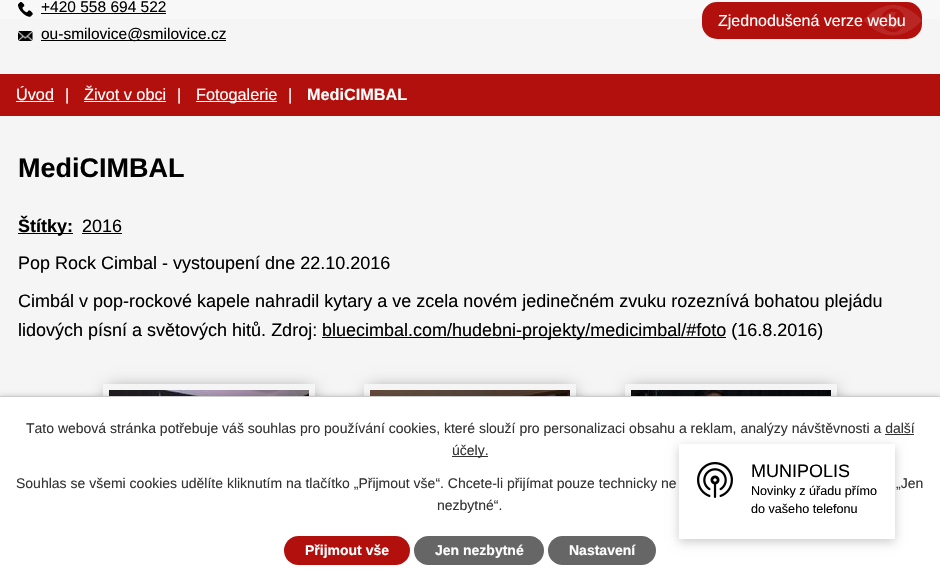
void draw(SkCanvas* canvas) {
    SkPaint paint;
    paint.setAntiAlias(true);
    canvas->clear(0xFFF5F5F5);
    {
        const SkColor colors[] = {0xFFFEFEFE, 0xFFF5F5F5};
        const float stops[] = {0, 1};
        const SkPoint ends[] = {{470, -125}, {470, 74}};
        paint.setShader(SkGradientShader::MakeLinear(ends, colors, stops, 2, SkTileMode::kClamp));
        paint.setAlpha(255);
    }
    canvas->drawRect(SkRect::MakeXYWH(0, 0, 940, 19), paint);
    canvas->drawImageRect(SkImages::DeferredFromEncodedData(SkData::MakeFromFileName("img1.png")), SkRect::MakeXYWH(18, 2, 15, 15), SkSamplingOptions());
    SkFont font1(fontMgr->matchFamilyStyle("Liberation Sans", SkFontStyle::Normal()), 15.5f);
    font1.setSubpixel(true);
    paint.setShader(nullptr);
    paint.setColor(0xFF000000);
    canvas->drawString("+420 558 694 522", 41, 12, font1, paint);
    canvas->drawRect(SkRect::MakeXYWH(41, 13, 125, 1), paint);
    canvas->drawImageRect(SkImages::DeferredFromEncodedData(SkData::MakeFromFileName("img2.png")), SkRect::MakeXYWH(18, 31, 15, 10), SkSamplingOptions());
    canvas->drawRect(SkRect::MakeXYWH(41, 40, 185, 1), paint);
    canvas->drawString("ou-smilovice@smilovice.cz", 41, 39, font1, paint);
    paint.setColor(0xFFB2100D);
    canvas->drawRoundRect(SkRect::MakeXYWH(702, 2, 220, 37), 15, 15, paint);
    canvas->drawImageRect(SkImages::DeferredFromEncodedData(SkData::MakeFromFileName("img3.png")), SkRect::MakeXYWH(864, 5, 58, 31), SkSamplingOptions());
    SkFont font2(fontMgr->matchFamilyStyle("Liberation Sans", SkFontStyle::Normal()), 16);
    font2.setSubpixel(true);
    paint.setColor(0xFFFFFFFF);
    canvas->drawString("Zjednodušená verze webu", 718, 26, font2, paint);
    paint.setColor(0xFFB2100D);
    canvas->drawRect(SkRect::MakeXYWH(0, 74, 940, 42), paint);
    SkFont font3(fontMgr->matchFamilyStyle("Liberation Sans", SkFontStyle::Normal()), 16.25f);
    font3.setSubpixel(true);
    paint.setColor(0xFFFFFFFF);
    canvas->drawString("Úvod", 16, 100, font3, paint);
    canvas->drawRect(SkRect::MakeXYWH(16, 101, 38, 1), paint);
    canvas->drawString("|", 65, 100, font3, paint);
    canvas->drawString("Život v obci", 84, 100, font3, paint);
    canvas->drawRect(SkRect::MakeXYWH(84, 101, 82, 1), paint);
    canvas->drawString("|", 177, 100, font3, paint);
    canvas->drawRect(SkRect::MakeXYWH(196, 101, 81, 1), paint);
    canvas->drawString("Fotogalerie", 196, 100, font3, paint);
    canvas->drawString("|", 288, 100, font3, paint);
    SkFont font4(fontMgr->matchFamilyStyle("Liberation Sans", SkFontStyle::Bold()), 16.25f);
    font4.setSubpixel(true);
    canvas->drawString("MediCIMBAL", 307, 100, font4, paint);
    SkFont font5(fontMgr->matchFamilyStyle("Liberation Sans", SkFontStyle::Bold()), 27);
    font5.setSubpixel(true);
    paint.setColor(0xFF000000);
    canvas->drawString("MediCIMBAL", 18, 177, font5, paint);
    canvas->drawRect(SkRect::MakeXYWH(18, 233, 55, 1), paint);
    SkFont font6(fontMgr->matchFamilyStyle("Liberation Sans", SkFontStyle::Bold()), 18);
    font6.setSubpixel(true);
    canvas->drawString("Štítky:", 18, 232, font6, paint);
    SkFont font7(fontMgr->matchFamilyStyle("Liberation Sans", SkFontStyle::Normal()), 18);
    font7.setSubpixel(true);
    canvas->drawString("2016", 82, 232, font7, paint);
    canvas->drawRect(SkRect::MakeXYWH(82, 233, 40, 1), paint);
    canvas->drawString("Pop Rock Cimbal - vystoupení dne 22.10.2016", 18, 269, font7, paint);
    canvas->drawString("Cimbál v pop-rockové kapele nahradil kytary a ve zcela novém jedinečném zvuku rozeznívá bohatou plejádu", 18, 307, font7, paint);
    canvas->drawString("lidových písní a světových hitů. Zdroj:", 18, 336, font7, paint);
    canvas->drawRect(SkRect::MakeXYWH(322, 337, 404, 1), paint);
    canvas->drawString("bluecimbal.com/hudebni-projekty/medicimbal/#foto (16.8.2016)", 322, 336, font7, paint);
    canvas->save();
    canvas->clipPath(SkPathBuilder(SkPathFillType::kEvenOdd).moveTo(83, 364).lineTo(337, 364).lineTo(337, 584).lineTo(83, 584).close().moveTo(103, 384).lineTo(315, 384).lineTo(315, 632).lineTo(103, 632).close().detach(), true);
    paint.setColor(0xFF888888);
    paint.setMaskFilter(SkMaskFilter::MakeBlur(kNormal_SkBlurStyle, 8));
    canvas->drawRect(SkRect::MakeXYWH(108, 389, 204, 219), paint);
    paint.setMaskFilter(nullptr);
    canvas->restore();
    canvas->drawImageRect(SkImages::DeferredFromEncodedData(SkData::MakeFromFileName("img4.png")), SkRect::MakeXYWH(109, 390, 200, 6), SkSamplingOptions());
    canvas->save();
    canvas->clipPath(SkPathBuilder(SkPathFillType::kEvenOdd).moveTo(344, 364).lineTo(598, 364).lineTo(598, 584).lineTo(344, 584).close().moveTo(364, 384).lineTo(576, 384).lineTo(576, 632).lineTo(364, 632).close().detach(), true);
    paint.setMaskFilter(SkMaskFilter::MakeBlur(kNormal_SkBlurStyle, 8));
    canvas->drawRect(SkRect::MakeXYWH(369, 389, 204, 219), paint);
    paint.setMaskFilter(nullptr);
    canvas->restore();
    canvas->drawImageRect(SkImages::DeferredFromEncodedData(SkData::MakeFromFileName("img5.png")), SkRect::MakeXYWH(370, 390, 200, 6), SkSamplingOptions());
    canvas->save();
    canvas->clipPath(SkPathBuilder(SkPathFillType::kEvenOdd).moveTo(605, 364).lineTo(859, 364).lineTo(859, 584).lineTo(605, 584).close().moveTo(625, 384).lineTo(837, 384).lineTo(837, 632).lineTo(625, 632).close().detach(), true);
    paint.setMaskFilter(SkMaskFilter::MakeBlur(kNormal_SkBlurStyle, 8));
    canvas->drawRect(SkRect::MakeXYWH(630, 389, 204, 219), paint);
    paint.setMaskFilter(nullptr);
    canvas->restore();
    canvas->drawImageRect(SkImages::DeferredFromEncodedData(SkData::MakeFromFileName("img6.png")), SkRect::MakeXYWH(631, 390, 200, 6), SkSamplingOptions());
    paint.setColor(0x33000000);
    paint.setMaskFilter(SkMaskFilter::MakeBlur(kNormal_SkBlurStyle, 2.5f));
    canvas->drawRect(SkRect::MakeXYWH(0, 396, 940, 188), paint);
    paint.setMaskFilter(nullptr);
    paint.setColor(0xFFFFFFFF);
    canvas->drawRect(SkRect::MakeXYWH(0, 397, 940, 187), paint);
    paint.setColor(0xFF333333);
    canvas->drawRect(SkRect::MakeXYWH(885, 434, 29, 1), paint);
    paint.setColor(0x33000000);
    paint.setMaskFilter(SkMaskFilter::MakeBlur(kNormal_SkBlurStyle, 5));
    canvas->drawRect(SkRect::MakeXYWH(679, 447, 216, 95), paint);
    paint.setMaskFilter(nullptr);
    paint.setColor(0xFFFFFFFF);
    canvas->drawRect(SkRect::MakeXYWH(679, 444, 216, 95), paint);
    canvas->drawImageRect(SkImages::DeferredFromEncodedData(SkData::MakeFromFileName("img7.png")), SkRect::MakeXYWH(697, 462, 36, 36), SkSamplingOptions());
    paint.setColor(0xFF000000);
    canvas->drawString("MUNIPOLIS", 751, 477, font7, paint);
    SkFont font8(fontMgr->matchFamilyStyle("Liberation Sans", SkFontStyle::Normal()), 12.6f);
    font8.setSubpixel(true);
    canvas->drawString("Novinky z úřadu přímo", 751, 495, font8, paint);
    canvas->drawString("do vašeho telefonu", 751, 513, font8, paint);
    paint.setColor(0xFFCCCCCC);
    canvas->drawRect(SkRect::MakeXYWH(0, 396, 940, 1), paint);
    SkFont font9(fontMgr->matchFamilyStyle("Liberation Sans", SkFontStyle::Normal()), 14);
    font9.setSubpixel(true);
    paint.setColor(0xFF333333);
    canvas->drawString("Tato webová stránka potřebuje váš souhlas pro používání cookies, které slouží pro personalizaci obsahu a reklam, analýzy návštěvnosti a další", 26, 433, font9, paint);
    canvas->drawRect(SkRect::MakeXYWH(452, 456, 36, 1), paint);
    canvas->drawString("účely.", 452, 455, font9, paint);
    canvas->drawString("Souhlas se všemi cookies udělíte kliknutím na tlačítko „Přijmout vše“. Chcete-li přijímat pouze technicky ne", 16, 488, font9, paint);
    canvas->drawString("„Jen", 896, 488, font9, paint);
    canvas->drawString("nezbytné“.", 437, 510, font9, paint);
    paint.setColor(0xFFB2100D);
    canvas->drawRoundRect(SkRect::MakeXYWH(284, 536, 126, 29), 14.5f, 14.5f, paint);
    SkFont font10(fontMgr->matchFamilyStyle("Liberation Sans", SkFontStyle::Bold()), 14);
    font10.setSubpixel(true);
    paint.setColor(0xFFFFFFFF);
    canvas->drawString("Přijmout vše", 305, 555, font10, paint);
    paint.setColor(0xFF666666);
    canvas->drawRoundRect(SkRect::MakeXYWH(414, 536, 130, 29), 14.5f, 14.5f, paint);
    paint.setColor(0xFFFFFFFF);
    canvas->drawString("Jen nezbytné", 435, 555, font10, paint);
    paint.setColor(0xFF666666);
    canvas->drawRoundRect(SkRect::MakeXYWH(548, 536, 108, 29), 14.5f, 14.5f, paint);
    paint.setColor(0xFFFFFFFF);
    canvas->drawString("Nastavení", 569, 555, font10, paint);
}
